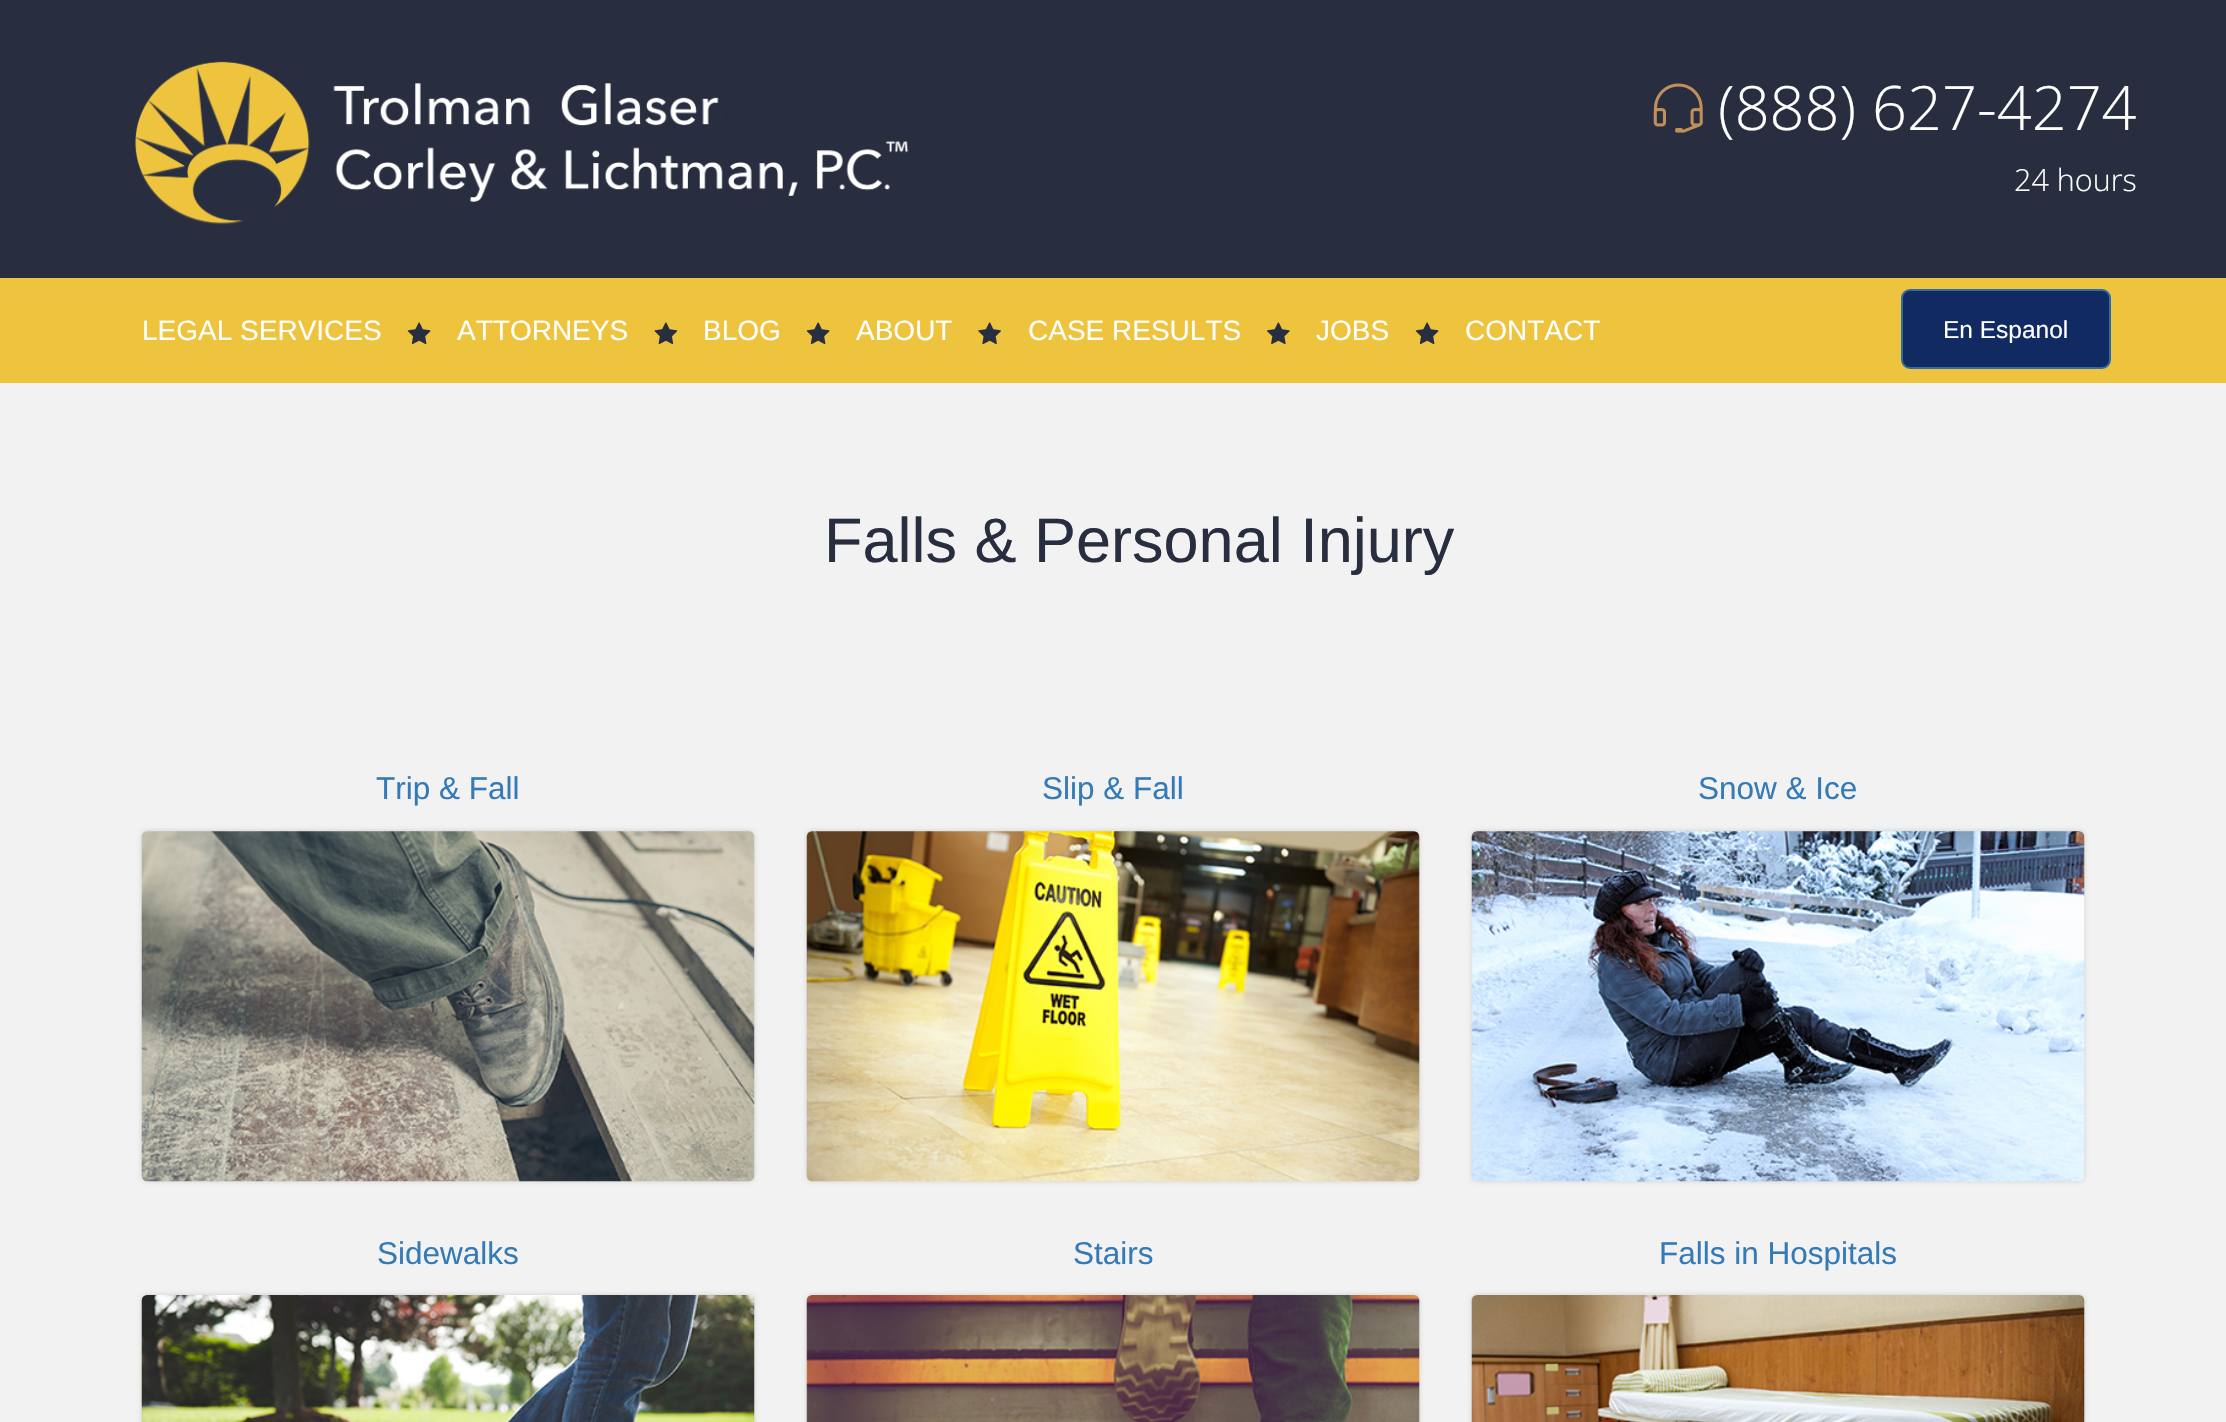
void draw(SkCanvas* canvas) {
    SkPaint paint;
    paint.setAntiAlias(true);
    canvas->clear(0xFFF2F2F2);
    paint.setColor(0xFF282E3F);
    canvas->drawRect(SkRect::MakeXYWH(0, 0, 2226, 278), paint);
    canvas->drawImageRect(SkImages::DeferredFromEncodedData(SkData::MakeFromFileName("img1.png")), SkRect::MakeXYWH(135, 61, 774, 164), SkSamplingOptions());
    canvas->drawImageRect(SkImages::DeferredFromEncodedData(SkData::MakeFromFileName("img2.png")), SkRect::MakeXYWH(1653, 83, 50, 50), SkSamplingOptions());
    SkFont font1(fontMgr->matchFamilyStyle("Open Sans", SkFontStyle(300, SkFontStyle::kNormal_Width, SkFontStyle::kUpright_Slant)), 61.25f);
    font1.setSubpixel(true);
    paint.setColor(0xFFFFFFFF);
    canvas->drawString("(888) 627-4274", 1718, 130, font1, paint);
    SkFont font2(fontMgr->matchFamilyStyle("Open Sans", SkFontStyle(300, SkFontStyle::kNormal_Width, SkFontStyle::kUpright_Slant)), 30.5f);
    font2.setSubpixel(true);
    canvas->drawString("24 hours", 2014, 191, font2, paint);
    paint.setColor(0xFFEEC33D);
    canvas->drawRect(SkRect::MakeXYWH(0, 278, 2226, 105), paint);
    SkFont font3(fontMgr->matchFamilyStyle("Liberation Sans", SkFontStyle::Normal()), 28);
    font3.setSubpixel(true);
    paint.setColor(0xFFFFFFFF);
    canvas->drawString("LEGAL SERVICES", 142, 340, font3, paint);
    canvas->drawImageRect(SkImages::DeferredFromEncodedData(SkData::MakeFromFileName("img3.png")), SkRect::MakeXYWH(407, 322, 24, 23), SkSamplingOptions());
    canvas->drawString("ATTORNEYS", 457, 340, font3, paint);
    canvas->drawImageRect(SkImages::DeferredFromEncodedData(SkData::MakeFromFileName("img4.png")), SkRect::MakeXYWH(654, 322, 24, 23), SkSamplingOptions());
    canvas->drawString("BLOG", 703, 340, font3, paint);
    canvas->drawImageRect(SkImages::DeferredFromEncodedData(SkData::MakeFromFileName("img3.png")), SkRect::MakeXYWH(806, 322, 24, 23), SkSamplingOptions());
    canvas->drawString("ABOUT", 856, 340, font3, paint);
    canvas->drawImageRect(SkImages::DeferredFromEncodedData(SkData::MakeFromFileName("img5.png")), SkRect::MakeXYWH(978, 322, 23, 23), SkSamplingOptions());
    canvas->drawString("CASE RESULTS", 1028, 340, font3, paint);
    canvas->drawImageRect(SkImages::DeferredFromEncodedData(SkData::MakeFromFileName("img6.png")), SkRect::MakeXYWH(1267, 322, 23, 23), SkSamplingOptions());
    canvas->drawString("JOBS", 1316, 340, font3, paint);
    canvas->drawImageRect(SkImages::DeferredFromEncodedData(SkData::MakeFromFileName("img3.png")), SkRect::MakeXYWH(1415, 322, 24, 23), SkSamplingOptions());
    canvas->drawString("CONTACT", 1465, 340, font3, paint);
    paint.setColor(0xFF112A61);
    canvas->drawRoundRect(SkRect::MakeXYWH(1902, 290, 208, 78), 8, 8, paint);
    paint.setStyle(SkPaint::kStroke_Style);
    paint.setStrokeWidth(2);
    paint.setColor(0xFF2E6DA4);
    canvas->drawRoundRect(SkRect::MakeXYWH(1902, 290, 208, 78), 8, 8, paint);
    SkFont font4(fontMgr->matchFamilyStyle("Liberation Sans", SkFontStyle::Normal()), 24.5f);
    font4.setSubpixel(true);
    paint.setStyle(SkPaint::kFill_Style);
    paint.setColor(0xFFFFFFFF);
    canvas->drawString("En Espanol", 1943, 338, font4, paint);
    SkFont font5(fontMgr->matchFamilyStyle("Liberation Sans", SkFontStyle::Normal()), 63);
    font5.setSubpixel(true);
    paint.setColor(0xFF282E3F);
    canvas->drawString("Falls & Personal Injury", 824, 562, font5, paint);
    SkFont font6(fontMgr->matchFamilyStyle("Liberation Sans", SkFontStyle::Normal()), 31.5f);
    font6.setSubpixel(true);
    paint.setColor(0xFF337AB7);
    canvas->drawString("Trip & Fall", 376, 799, font6, paint);
    paint.setColor(0xFFCCCCCC);
    paint.setMaskFilter(SkMaskFilter::MakeBlur(kNormal_SkBlurStyle, 2.5f));
    canvas->drawRoundRect(SkRect::MakeXYWH(142, 831, 612, 350), 5, 5, paint);
    paint.setMaskFilter(nullptr);
    canvas->drawImageRect(SkImages::DeferredFromEncodedData(SkData::MakeFromFileName("img7.png")), SkRect::MakeXYWH(141, 831, 614, 351), SkSamplingOptions());
    paint.setColor(0xFF337AB7);
    canvas->drawString("Slip & Fall", 1042, 799, font6, paint);
    paint.setColor(0xFFCCCCCC);
    paint.setMaskFilter(SkMaskFilter::MakeBlur(kNormal_SkBlurStyle, 2.5f));
    canvas->drawRoundRect(SkRect::MakeXYWH(807, 831, 612, 350), 5, 5, paint);
    paint.setMaskFilter(nullptr);
    canvas->drawImageRect(SkImages::DeferredFromEncodedData(SkData::MakeFromFileName("img8.png")), SkRect::MakeXYWH(806, 831, 614, 351), SkSamplingOptions());
    paint.setColor(0xFF337AB7);
    canvas->drawString("Snow & Ice", 1698, 799, font6, paint);
    paint.setColor(0xFFCCCCCC);
    paint.setMaskFilter(SkMaskFilter::MakeBlur(kNormal_SkBlurStyle, 2.5f));
    canvas->drawRoundRect(SkRect::MakeXYWH(1472, 831, 612, 350), 5, 5, paint);
    paint.setMaskFilter(nullptr);
    canvas->drawImageRect(SkImages::DeferredFromEncodedData(SkData::MakeFromFileName("img9.png")), SkRect::MakeXYWH(1471, 831, 614, 351), SkSamplingOptions());
    paint.setColor(0xFF337AB7);
    canvas->drawString("Sidewalks", 377, 1264, font6, paint);
    paint.setColor(0xFFCCCCCC);
    paint.setMaskFilter(SkMaskFilter::MakeBlur(kNormal_SkBlurStyle, 2.5f));
    canvas->drawRoundRect(SkRect::MakeXYWH(142, 1295, 612, 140), 5, 5, paint);
    paint.setMaskFilter(nullptr);
    canvas->drawImageRect(SkImages::DeferredFromEncodedData(SkData::MakeFromFileName("img10.png")), SkRect::MakeXYWH(141, 1295, 614, 127), SkSamplingOptions());
    paint.setColor(0xFF337AB7);
    canvas->drawString("Stairs", 1073, 1264, font6, paint);
    paint.setColor(0xFFCCCCCC);
    paint.setMaskFilter(SkMaskFilter::MakeBlur(kNormal_SkBlurStyle, 2.5f));
    canvas->drawRoundRect(SkRect::MakeXYWH(807, 1295, 612, 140), 5, 5, paint);
    paint.setMaskFilter(nullptr);
    canvas->drawImageRect(SkImages::DeferredFromEncodedData(SkData::MakeFromFileName("img11.png")), SkRect::MakeXYWH(806, 1295, 614, 127), SkSamplingOptions());
    paint.setColor(0xFF337AB7);
    canvas->drawString("Falls in Hospitals", 1659, 1264, font6, paint);
    paint.setColor(0xFFCCCCCC);
    paint.setMaskFilter(SkMaskFilter::MakeBlur(kNormal_SkBlurStyle, 2.5f));
    canvas->drawRoundRect(SkRect::MakeXYWH(1472, 1295, 612, 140), 5, 5, paint);
    paint.setMaskFilter(nullptr);
    canvas->drawImageRect(SkImages::DeferredFromEncodedData(SkData::MakeFromFileName("img12.png")), SkRect::MakeXYWH(1471, 1295, 614, 127), SkSamplingOptions());
}
